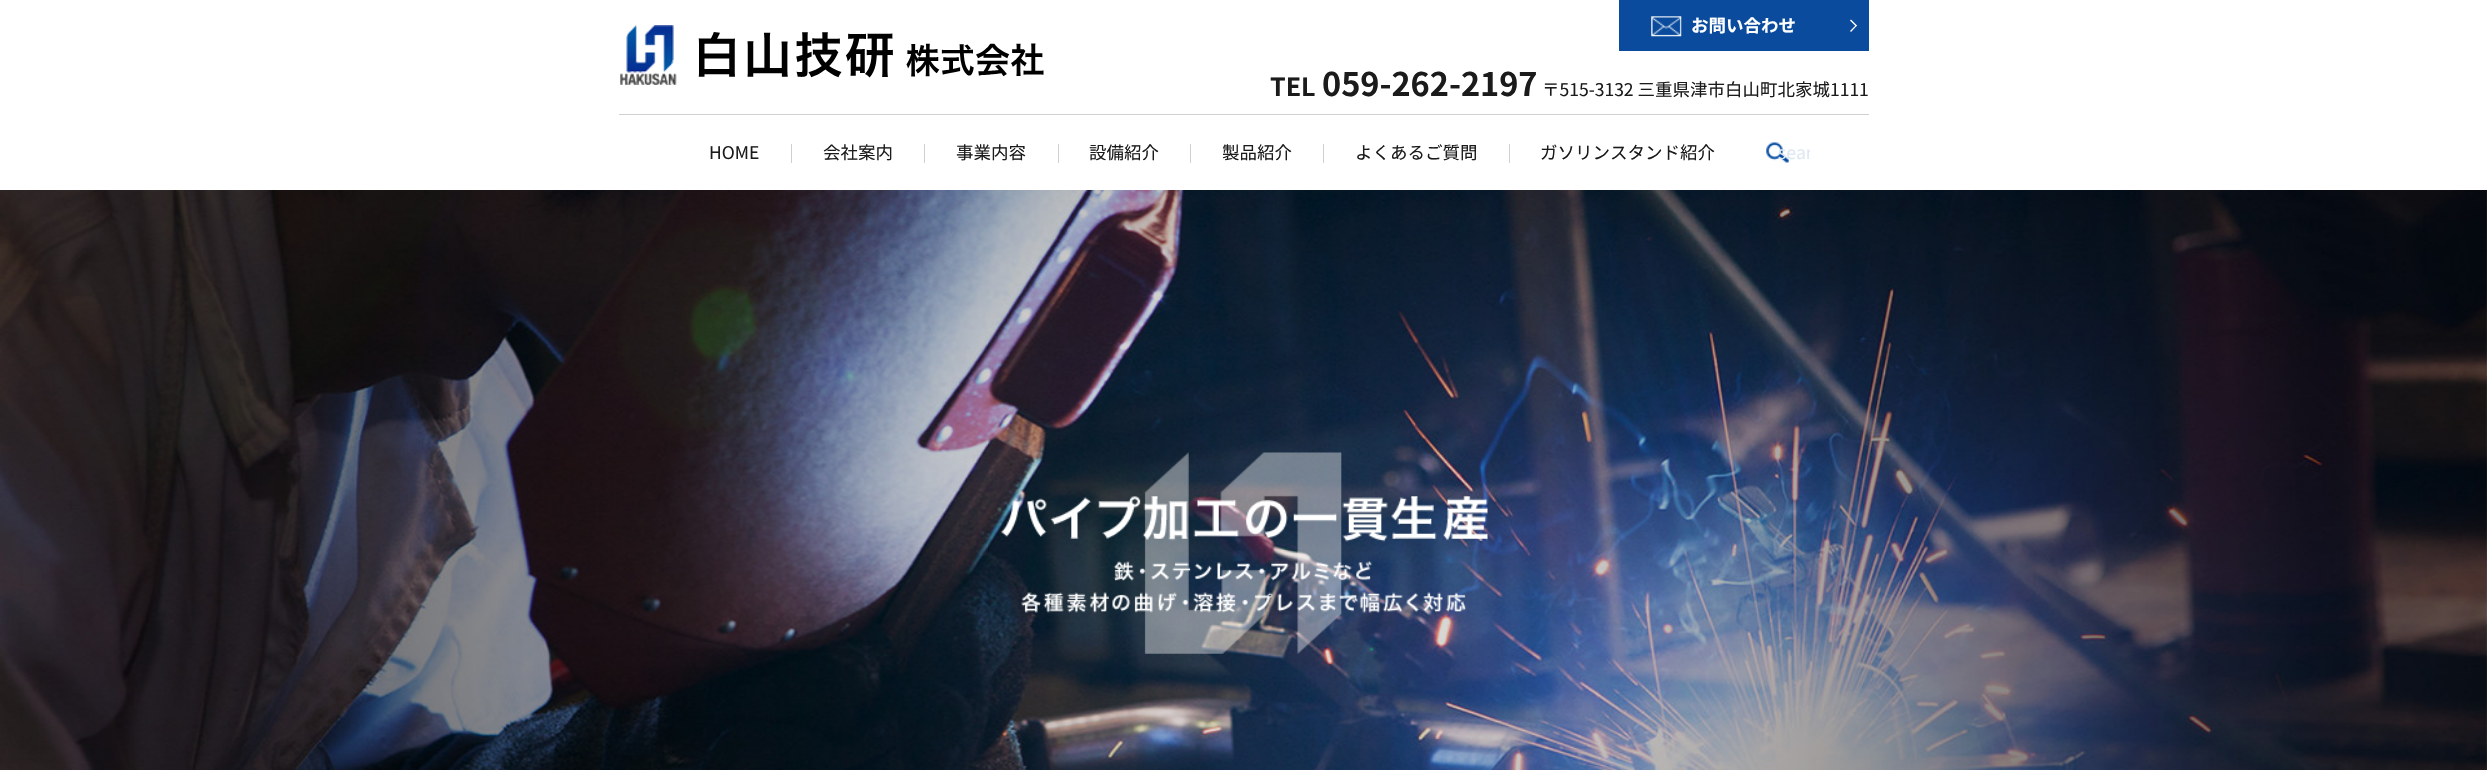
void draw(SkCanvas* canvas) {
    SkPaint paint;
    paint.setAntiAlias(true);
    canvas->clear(0xFFFFFFFF);
    canvas->drawImageRect(SkImages::DeferredFromEncodedData(SkData::MakeFromFileName("img1.png")), SkRect::MakeXYWH(620, 25, 424, 60), SkSamplingOptions());
    paint.setColor(0xFF0A4B9D);
    canvas->drawRect(SkRect::MakeXYWH(1619, 0, 250, 51), paint);
    canvas->drawImageRect(SkImages::DeferredFromEncodedData(SkData::MakeFromFileName("img2.png")), SkRect::MakeXYWH(1651, 16, 31, 21), SkSamplingOptions());
    SkFont font1(fontMgr->matchFamilyStyle("Noto Sans JP", SkFontStyle::Bold()), 17.5f);
    font1.setSubpixel(true);
    paint.setColor(0xFFFFFFFF);
    canvas->drawString("お問い合わせ", 1691, 32, font1, paint);
    canvas->drawPath(SkPathBuilder().moveTo(1851, 19.5f).lineTo(1857, 25.5f).lineTo(1856, 26.5f).lineTo(1850, 20.5f).close().detach(), paint);
    canvas->drawPath(SkPathBuilder().moveTo(1856, 25).lineTo(1857, 25.5f).lineTo(1851, 32).lineTo(1850, 31).close().detach(), paint);
    SkFont font2(fontMgr->matchFamilyStyle("Noto Sans JP", SkFontStyle::Bold()), 25);
    font2.setSubpixel(true);
    paint.setColor(0xFF1B1B1B);
    canvas->drawString("TEL", 1270, 96, font2, paint);
    SkFont font3(fontMgr->matchFamilyStyle("Noto Sans JP", SkFontStyle::Bold()), 32.5f);
    font3.setSubpixel(true);
    canvas->drawString("059-262-2197", 1322, 96, font3, paint);
    SkFont font4(fontMgr->matchFamilyStyle("Noto Sans JP", SkFontStyle::Normal()), 17.5f);
    font4.setSubpixel(true);
    canvas->drawString("〒515-3132 三重県津市白山町北家城1111", 1542, 96, font4, paint);
    paint.setColor(0xFFD1CFCF);
    canvas->drawRect(SkRect::MakeXYWH(619, 114, 1250, 1), paint);
    paint.setColor(0xFF1B1B1B);
    canvas->drawString("HOME", 709, 159, font4, paint);
    paint.setColor(0xFFD1CFCF);
    canvas->drawRect(SkRect::MakeXYWH(791, 144, 1, 19), paint);
    paint.setColor(0xFF1B1B1B);
    canvas->drawString("会社案内", 823, 159, font4, paint);
    paint.setColor(0xFFD1CFCF);
    canvas->drawRect(SkRect::MakeXYWH(924, 144, 1, 19), paint);
    paint.setColor(0xFF1B1B1B);
    canvas->drawString("事業内容", 956, 159, font4, paint);
    paint.setColor(0xFFD1CFCF);
    canvas->drawRect(SkRect::MakeXYWH(1058, 144, 1, 19), paint);
    paint.setColor(0xFF1B1B1B);
    canvas->drawString("設備紹介", 1089, 159, font4, paint);
    paint.setColor(0xFFD1CFCF);
    canvas->drawRect(SkRect::MakeXYWH(1190, 144, 1, 19), paint);
    paint.setColor(0xFF1B1B1B);
    canvas->drawString("製品紹介", 1222, 159, font4, paint);
    paint.setColor(0xFFD1CFCF);
    canvas->drawRect(SkRect::MakeXYWH(1323, 144, 1, 19), paint);
    paint.setColor(0xFF1B1B1B);
    canvas->drawString("よくあるご質問", 1355, 159, font4, paint);
    paint.setColor(0xFFD1CFCF);
    canvas->drawRect(SkRect::MakeXYWH(1509, 144, 1, 19), paint);
    paint.setColor(0xFF1B1B1B);
    canvas->drawString("ガソリンスタンド紹介", 1540, 159, font4, paint);
    canvas->drawImageRect(SkImages::DeferredFromEncodedData(SkData::MakeFromFileName("img3.png")), SkRect::MakeXYWH(1766, 142, 23, 21), SkSamplingOptions());
    canvas->save();
    canvas->clipRect(SkRect::MakeXYWH(1746, 134, 64, 37));
    paint.setColor(0xFFDFE8F3);
    canvas->drawString("sear", 1778, 159, font4, paint);
    canvas->restore();
    canvas->drawImageRect(SkImages::DeferredFromEncodedData(SkData::MakeFromFileName("img4.png")), SkRect::MakeXYWH(0, 190, 2487, 580), SkSamplingOptions());
    canvas->drawImageRect(SkImages::DeferredFromEncodedData(SkData::MakeFromFileName("img5.png")), SkRect::MakeXYWH(1001, 452, 487, 202), SkSamplingOptions());
}
